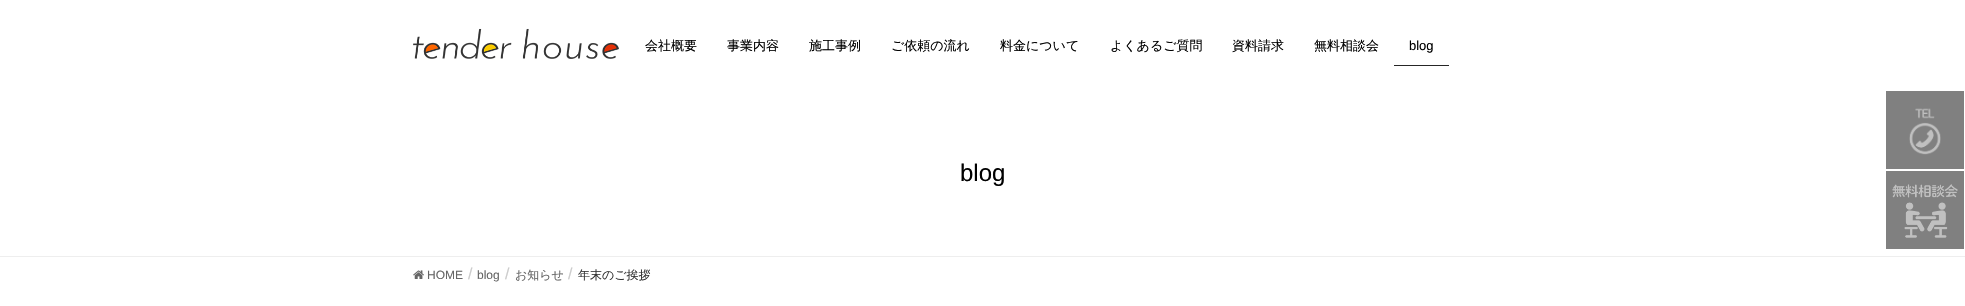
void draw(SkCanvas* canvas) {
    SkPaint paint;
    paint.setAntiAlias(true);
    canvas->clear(0xFFFFFFFF);
    canvas->drawImageRect(SkImages::DeferredFromEncodedData(SkData::MakeFromFileName("img1.png")), SkRect::MakeXYWH(413, 28, 206, 31), SkSamplingOptions());
    SkFont font1(fontMgr->matchFamilyStyle("WenQuanYi Zen Hei", SkFontStyle(500, SkFontStyle::kNormal_Width, SkFontStyle::kUpright_Slant)), 13);
    font1.setSubpixel(true);
    paint.setColor(0xFF000000);
    canvas->drawString("会社概要", 645, 50, font1, paint);
    canvas->drawString("事業内容", 727, 50, font1, paint);
    canvas->drawString("施工事例", 809, 50, font1, paint);
    canvas->drawString("ご依頼の流れ", 891, 50, font1, paint);
    canvas->drawString("料金について", 1000, 50, font1, paint);
    canvas->drawString("よくあるご質問", 1110, 50, font1, paint);
    canvas->drawString("資料請求", 1232, 50, font1, paint);
    canvas->drawString("無料相談会", 1314, 50, font1, paint);
    SkFont font2(fontMgr->matchFamilyStyle("Liberation Sans", SkFontStyle::Normal()), 13);
    font2.setSubpixel(true);
    canvas->drawString("blog", 1409, 50, font2, paint);
    paint.setColor(0xFF262626);
    canvas->drawRect(SkRect::MakeXYWH(1394, 65, 55, 1), paint);
    paint.setColor(0xFFEEEEEE);
    canvas->drawRect(SkRect::MakeXYWH(0, 256, 1965, 1), paint);
    SkFont font3(fontMgr->matchFamilyStyle("Liberation Sans", SkFontStyle::Normal()), 24);
    font3.setSubpixel(true);
    paint.setColor(0xFF000000);
    canvas->drawString("blog", 960, 181, font3, paint);
    paint.setColor(0xFF808080);
    canvas->drawRect(SkRect::MakeXYWH(1886, 91, 78, 78), paint);
    canvas->drawImageRect(SkImages::DeferredFromEncodedData(SkData::MakeFromFileName("img2.png")), SkRect::MakeXYWH(1909, 108, 32, 47), SkSamplingOptions());
    canvas->drawRect(SkRect::MakeXYWH(1886, 171, 78, 78), paint);
    canvas->drawImageRect(SkImages::DeferredFromEncodedData(SkData::MakeFromFileName("img3.png")), SkRect::MakeXYWH(1892, 184, 66, 54), SkSamplingOptions());
    canvas->drawImageRect(SkImages::DeferredFromEncodedData(SkData::MakeFromFileName("img4.png")), SkRect::MakeXYWH(413, 270, 11, 9), SkSamplingOptions());
    SkFont font4(fontMgr->matchFamilyStyle("Liberation Sans", SkFontStyle::Normal()), 12);
    font4.setSubpixel(true);
    paint.setColor(0xFF666666);
    canvas->drawString("HOME", 427, 279, font4, paint);
    SkFont font5(fontMgr->matchFamilyStyle("Liberation Sans", SkFontStyle::Normal()), 16);
    font5.setSubpixel(true);
    paint.setColor(0xFFCCCCCC);
    canvas->drawString("/", 468, 279, font5, paint);
    paint.setColor(0xFF666666);
    canvas->drawString("blog", 477, 279, font4, paint);
    paint.setColor(0xFFCCCCCC);
    canvas->drawString("/", 505, 279, font5, paint);
    SkFont font6(fontMgr->matchFamilyStyle("WenQuanYi Zen Hei", SkFontStyle(500, SkFontStyle::kNormal_Width, SkFontStyle::kUpright_Slant)), 12);
    font6.setSubpixel(true);
    paint.setColor(0xFF666666);
    canvas->drawString("お知らせ", 515, 279, font6, paint);
    paint.setColor(0xFFCCCCCC);
    canvas->drawString("/", 568, 279, font5, paint);
    paint.setColor(0xFF333333);
    canvas->drawString("年末のご挨拶", 578, 279, font6, paint);
}
